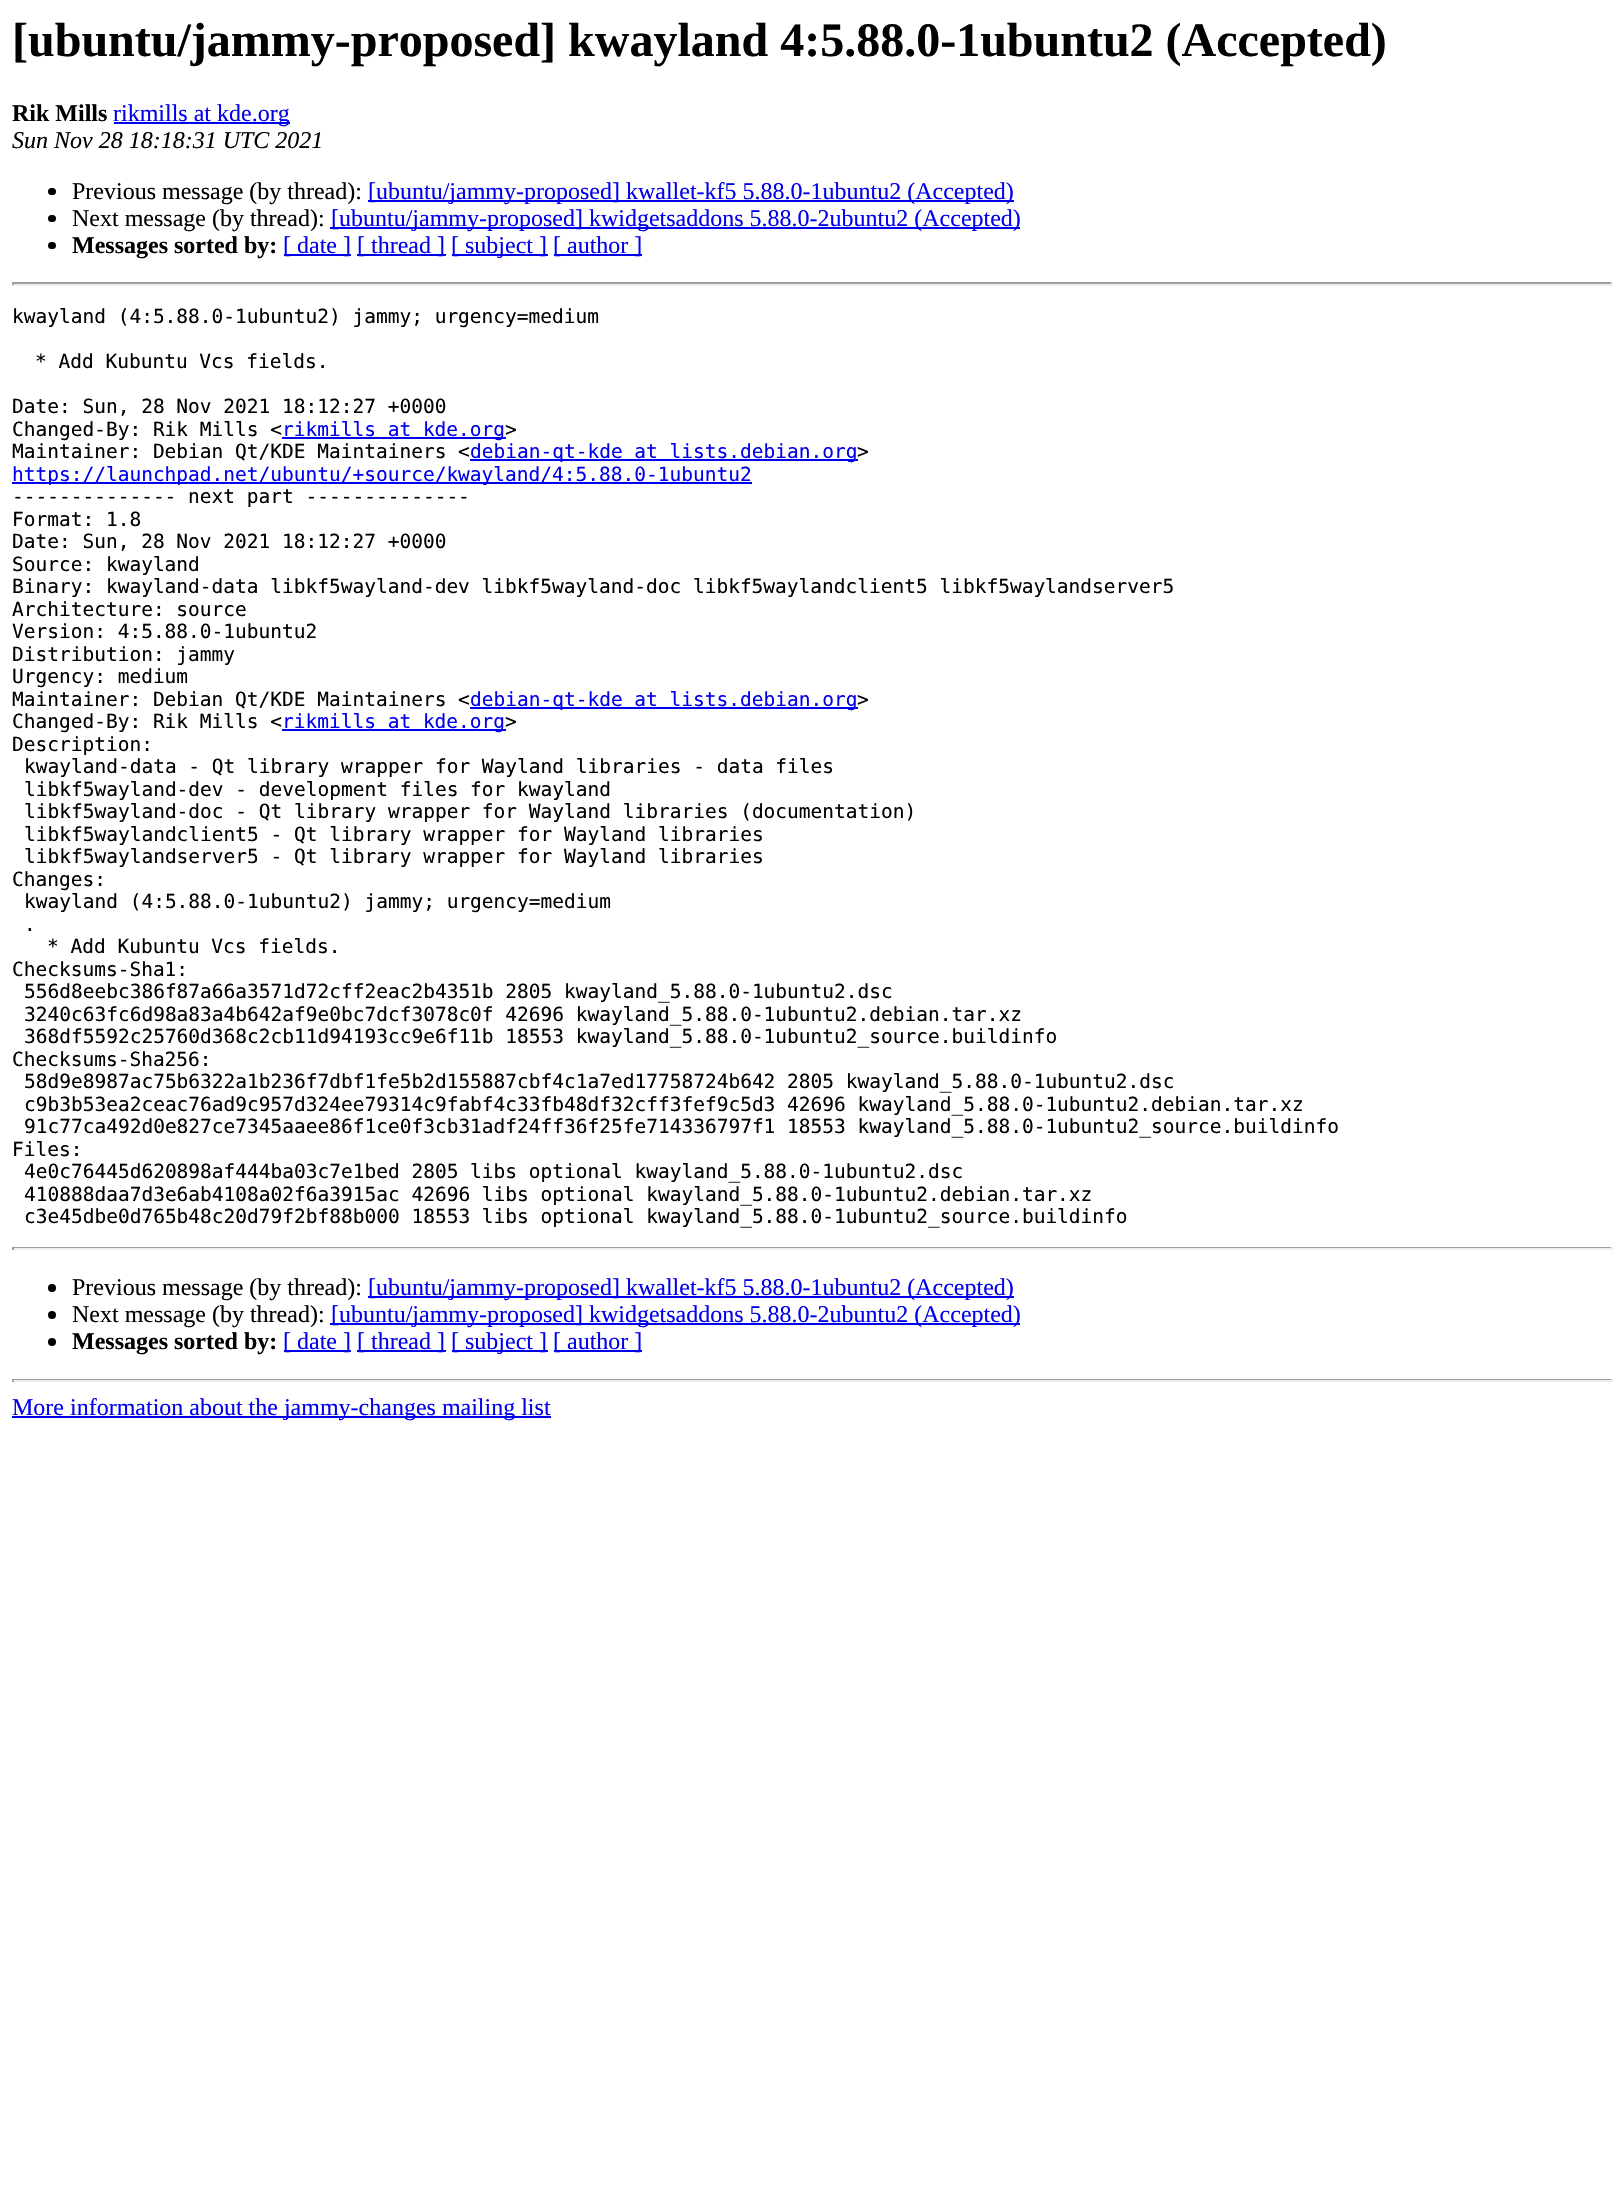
void draw(SkCanvas* canvas) {
    SkPaint paint;
    paint.setAntiAlias(true);
    canvas->clear(0xFFFFFFFF);
    SkFont font1(fontMgr->matchFamilyStyle("Liberation Serif", SkFontStyle::Bold()), 48);
    font1.setSubpixel(true);
    paint.setColor(0xFF000000);
    canvas->drawString("[ubuntu/jammy-proposed] kwayland 4:5.88.0-1ubuntu2 (Accepted)", 12, 56, font1, paint);
    SkFont font2(fontMgr->matchFamilyStyle("Liberation Serif", SkFontStyle::Bold()), 24);
    font2.setSubpixel(true);
    canvas->drawString("Rik Mills", 12, 121, font2, paint);
    paint.setColor(0xFF0000EE);
    canvas->drawRect(SkRect::MakeXYWH(114, 122, 176, 2), paint);
    SkFont font3(fontMgr->matchFamilyStyle("Liberation Serif", SkFontStyle::Normal()), 24);
    font3.setSubpixel(true);
    canvas->drawString("rikmills at kde.org", 113, 121, font3, paint);
    SkFont font4(fontMgr->matchFamilyStyle("Liberation Serif", SkFontStyle::Italic()), 24);
    font4.setSubpixel(true);
    paint.setColor(0xFF000000);
    canvas->drawString("Sun Nov 28 18:18:31 UTC 2021", 12, 148, font4, paint);
    canvas->drawRoundRect(SkRect::MakeXYWH(48, 188, 8, 7), 3.5f, 3.5f, paint);
    canvas->drawString("Previous message (by thread):", 72, 199, font3, paint);
    paint.setColor(0xFF0000EE);
    canvas->drawRect(SkRect::MakeXYWH(368, 200, 646, 2), paint);
    canvas->drawString("[ubuntu/jammy-proposed] kwallet-kf5 5.88.0-1ubuntu2 (Accepted)", 368, 199, font3, paint);
    paint.setColor(0xFF000000);
    canvas->drawRoundRect(SkRect::MakeXYWH(48, 215, 8, 7), 3.5f, 3.5f, paint);
    canvas->drawString("Next message (by thread):", 72, 226, font3, paint);
    paint.setColor(0xFF0000EE);
    canvas->drawRect(SkRect::MakeXYWH(330, 227, 690, 2), paint);
    canvas->drawString("[ubuntu/jammy-proposed] kwidgetsaddons 5.88.0-2ubuntu2 (Accepted)", 331, 226, font3, paint);
    paint.setColor(0xFF000000);
    canvas->drawRoundRect(SkRect::MakeXYWH(48, 242, 8, 7), 3.5f, 3.5f, paint);
    canvas->drawString("Messages sorted by:", 72, 253, font2, paint);
    paint.setColor(0xFF0000EE);
    canvas->drawRect(SkRect::MakeXYWH(284, 254, 67, 2), paint);
    canvas->drawString("[ date ]", 283, 253, font3, paint);
    canvas->drawRect(SkRect::MakeXYWH(357, 254, 89, 2), paint);
    canvas->drawString("[ thread ]", 357, 253, font3, paint);
    canvas->drawRect(SkRect::MakeXYWH(452, 254, 96, 2), paint);
    canvas->drawString("[ subject ]", 451, 253, font3, paint);
    canvas->drawRect(SkRect::MakeXYWH(554, 254, 88, 2), paint);
    canvas->drawString("[ author ]", 553, 253, font3, paint);
    paint.setColor(0xFF9F9F9F);
    canvas->drawRect(SkRect::MakeXYWH(12, 282, 1601, 2), paint);
    paint.setColor(0xFFEEEEEE);
    canvas->drawRect(SkRect::MakeXYWH(1611, 282, 2, 3), paint);
    canvas->drawRect(SkRect::MakeXYWH(12, 284, 1601, 2), paint);
    paint.setColor(0xFF9F9F9F);
    canvas->drawRect(SkRect::MakeXYWH(12, 282, 2, 3), paint);
    SkFont font5(fontMgr->matchFamilyStyle("DejaVu Sans Mono", SkFontStyle::Normal()), 19.5f);
    font5.setSubpixel(true);
    paint.setColor(0xFF000000);
    canvas->drawString("kwayland (4:5.88.0-1ubuntu2) jammy; urgency=medium", 12, 323, font5, paint);
    canvas->drawString("* Add Kubuntu Vcs fields.", 35, 368, font5, paint);
    canvas->drawString("Date: Sun, 28 Nov 2021 18:12:27 +0000", 12, 413, font5, paint);
    canvas->drawString("Changed-By: Rik Mills <", 12, 436, font5, paint);
    paint.setColor(0xFF0000EE);
    canvas->drawRect(SkRect::MakeXYWH(282, 437, 224, 2), paint);
    canvas->drawString("rikmills at kde.org", 282, 436, font5, paint);
    paint.setColor(0xFF000000);
    canvas->drawString(">", 505, 436, font5, paint);
    canvas->drawString("Maintainer: Debian Qt/KDE Maintainers <", 12, 458, font5, paint);
    paint.setColor(0xFF0000EE);
    canvas->drawRect(SkRect::MakeXYWH(470, 459, 388, 2), paint);
    canvas->drawString("debian-qt-kde at lists.debian.org", 470, 458, font5, paint);
    paint.setColor(0xFF000000);
    canvas->drawString(">", 857, 458, font5, paint);
    paint.setColor(0xFF0000EE);
    canvas->drawRect(SkRect::MakeXYWH(12, 482, 740, 2), paint);
    canvas->drawString("https://launchpad.net/ubuntu/+source/kwayland/4:5.88.0-1ubuntu2", 12, 481, font5, paint);
    paint.setColor(0xFF000000);
    canvas->drawString("-------------- next part --------------", 12, 503, font5, paint);
    canvas->drawString("Format: 1.8", 12, 526, font5, paint);
    canvas->drawString("Date: Sun, 28 Nov 2021 18:12:27 +0000", 12, 548, font5, paint);
    canvas->drawString("Source: kwayland", 12, 571, font5, paint);
    canvas->drawString("Binary: kwayland-data libkf5wayland-dev libkf5wayland-doc libkf5waylandclient5 libkf5waylandserver5", 12, 593, font5, paint);
    canvas->drawString("Architecture: source", 12, 616, font5, paint);
    canvas->drawString("Version: 4:5.88.0-1ubuntu2", 12, 638, font5, paint);
    canvas->drawString("Distribution: jammy", 12, 661, font5, paint);
    canvas->drawString("Urgency: medium", 12, 683, font5, paint);
    canvas->drawString("Maintainer: Debian Qt/KDE Maintainers <", 12, 706, font5, paint);
    paint.setColor(0xFF0000EE);
    canvas->drawRect(SkRect::MakeXYWH(470, 707, 388, 2), paint);
    canvas->drawString("debian-qt-kde at lists.debian.org", 470, 706, font5, paint);
    paint.setColor(0xFF000000);
    canvas->drawString(">", 857, 706, font5, paint);
    canvas->drawString("Changed-By: Rik Mills <", 12, 728, font5, paint);
    paint.setColor(0xFF0000EE);
    canvas->drawRect(SkRect::MakeXYWH(282, 729, 224, 2), paint);
    canvas->drawString("rikmills at kde.org", 282, 728, font5, paint);
    paint.setColor(0xFF000000);
    canvas->drawString(">", 505, 728, font5, paint);
    canvas->drawString("Description:", 12, 751, font5, paint);
    canvas->drawString("kwayland-data - Qt library wrapper for Wayland libraries - data files", 24, 773, font5, paint);
    canvas->drawString("libkf5wayland-dev - development files for kwayland", 24, 796, font5, paint);
    canvas->drawString("libkf5wayland-doc - Qt library wrapper for Wayland libraries (documentation)", 24, 818, font5, paint);
    canvas->drawString("libkf5waylandclient5 - Qt library wrapper for Wayland libraries", 24, 841, font5, paint);
    canvas->drawString("libkf5waylandserver5 - Qt library wrapper for Wayland libraries", 24, 863, font5, paint);
    canvas->drawString("Changes:", 12, 886, font5, paint);
    canvas->drawString("kwayland (4:5.88.0-1ubuntu2) jammy; urgency=medium", 24, 908, font5, paint);
    canvas->drawString(".", 24, 931, font5, paint);
    canvas->drawString("* Add Kubuntu Vcs fields.", 47, 953, font5, paint);
    canvas->drawString("Checksums-Sha1:", 12, 976, font5, paint);
    canvas->drawString("556d8eebc386f87a66a3571d72cff2eac2b4351b 2805 kwayland_5.88.0-1ubuntu2.dsc", 24, 998, font5, paint);
    canvas->drawString("3240c63fc6d98a83a4b642af9e0bc7dcf3078c0f 42696 kwayland_5.88.0-1ubuntu2.debian.tar.xz", 24, 1021, font5, paint);
    canvas->drawString("368df5592c25760d368c2cb11d94193cc9e6f11b 18553 kwayland_5.88.0-1ubuntu2_source.buildinfo", 24, 1043, font5, paint);
    canvas->drawString("Checksums-Sha256:", 12, 1066, font5, paint);
    canvas->drawString("58d9e8987ac75b6322a1b236f7dbf1fe5b2d155887cbf4c1a7ed17758724b642 2805 kwayland_5.88.0-1ubuntu2.dsc", 24, 1088, font5, paint);
    canvas->drawString("c9b3b53ea2ceac76ad9c957d324ee79314c9fabf4c33fb48df32cff3fef9c5d3 42696 kwayland_5.88.0-1ubuntu2.debian.tar.xz", 24, 1111, font5, paint);
    canvas->drawString("91c77ca492d0e827ce7345aaee86f1ce0f3cb31adf24ff36f25fe714336797f1 18553 kwayland_5.88.0-1ubuntu2_source.buildinfo", 24, 1133, font5, paint);
    canvas->drawString("Files:", 12, 1156, font5, paint);
    canvas->drawString("4e0c76445d620898af444ba03c7e1bed 2805 libs optional kwayland_5.88.0-1ubuntu2.dsc", 24, 1178, font5, paint);
    canvas->drawString("410888daa7d3e6ab4108a02f6a3915ac 42696 libs optional kwayland_5.88.0-1ubuntu2.debian.tar.xz", 24, 1201, font5, paint);
    canvas->drawString("c3e45dbe0d765b48c20d79f2bf88b000 18553 libs optional kwayland_5.88.0-1ubuntu2_source.buildinfo", 24, 1223, font5, paint);
    paint.setColor(0xFF9F9F9F);
    canvas->drawRect(SkRect::MakeXYWH(12, 1247, 1601, 1), paint);
    paint.setColor(0xFFEEEEEE);
    canvas->drawRect(SkRect::MakeXYWH(1611, 1247, 2, 3), paint);
    canvas->drawRect(SkRect::MakeXYWH(12, 1248, 1601, 2), paint);
    paint.setColor(0xFF9F9F9F);
    canvas->drawRect(SkRect::MakeXYWH(12, 1247, 2, 3), paint);
    paint.setColor(0xFF000000);
    canvas->drawCircle(52, 1288, 4, paint);
    canvas->drawString("Previous message (by thread):", 72, 1295, font3, paint);
    paint.setColor(0xFF0000EE);
    canvas->drawRect(SkRect::MakeXYWH(368, 1296, 646, 2), paint);
    canvas->drawString("[ubuntu/jammy-proposed] kwallet-kf5 5.88.0-1ubuntu2 (Accepted)", 368, 1295, font3, paint);
    paint.setColor(0xFF000000);
    canvas->drawCircle(52, 1315, 4, paint);
    canvas->drawString("Next message (by thread):", 72, 1322, font3, paint);
    paint.setColor(0xFF0000EE);
    canvas->drawRect(SkRect::MakeXYWH(330, 1323, 690, 2), paint);
    canvas->drawString("[ubuntu/jammy-proposed] kwidgetsaddons 5.88.0-2ubuntu2 (Accepted)", 331, 1322, font3, paint);
    paint.setColor(0xFF000000);
    canvas->drawCircle(52, 1342, 4, paint);
    canvas->drawString("Messages sorted by:", 72, 1349, font2, paint);
    paint.setColor(0xFF0000EE);
    canvas->drawRect(SkRect::MakeXYWH(284, 1350, 67, 2), paint);
    canvas->drawString("[ date ]", 283, 1349, font3, paint);
    canvas->drawRect(SkRect::MakeXYWH(357, 1350, 89, 2), paint);
    canvas->drawString("[ thread ]", 357, 1349, font3, paint);
    canvas->drawRect(SkRect::MakeXYWH(452, 1350, 96, 2), paint);
    canvas->drawString("[ subject ]", 451, 1349, font3, paint);
    canvas->drawRect(SkRect::MakeXYWH(554, 1350, 88, 2), paint);
    canvas->drawString("[ author ]", 553, 1349, font3, paint);
    paint.setColor(0xFF9F9F9F);
    canvas->drawRect(SkRect::MakeXYWH(12, 1379, 1601, 1), paint);
    paint.setColor(0xFFEEEEEE);
    canvas->drawRect(SkRect::MakeXYWH(1611, 1379, 2, 3), paint);
    canvas->drawRect(SkRect::MakeXYWH(12, 1380, 1601, 2), paint);
    paint.setColor(0xFF9F9F9F);
    canvas->drawRect(SkRect::MakeXYWH(12, 1379, 2, 3), paint);
    paint.setColor(0xFF0000EE);
    canvas->drawRect(SkRect::MakeXYWH(12, 1416, 539, 2), paint);
    canvas->drawString("More information about the jammy-changes mailing list", 12, 1415, font3, paint);
}
